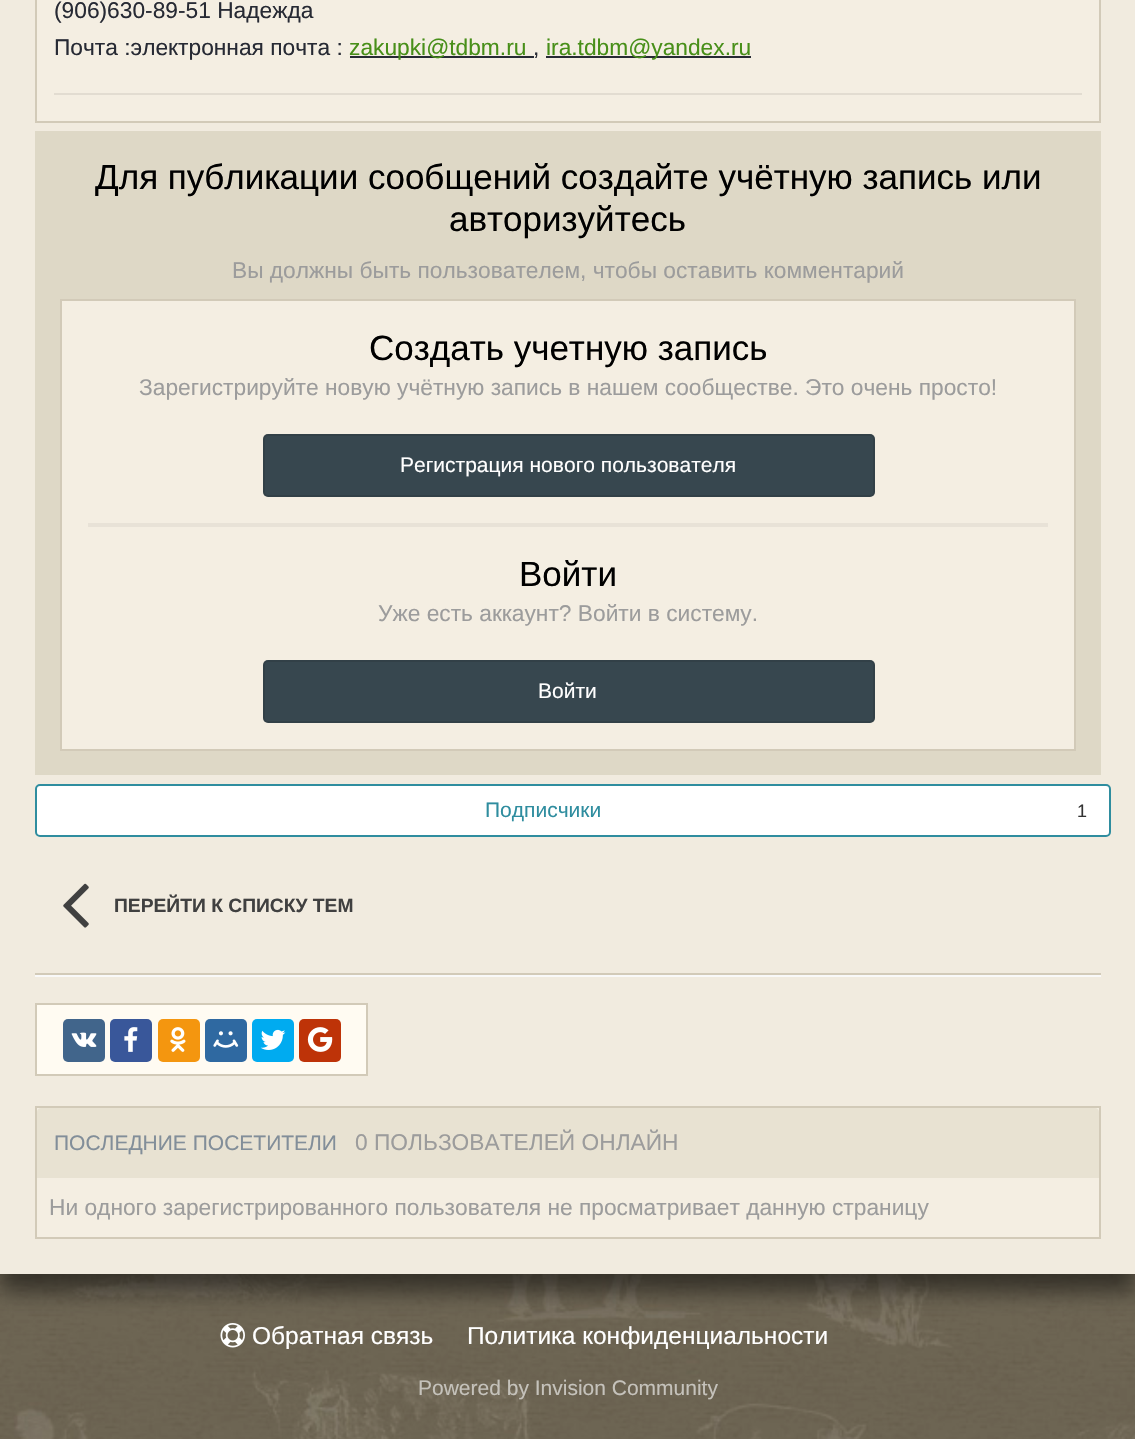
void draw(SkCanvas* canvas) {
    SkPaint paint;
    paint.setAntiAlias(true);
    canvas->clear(0xFFFFFFFF);
    canvas->drawImageRect(SkImages::DeferredFromEncodedData(SkData::MakeFromFileName("img1.png")), SkRect::MakeXYWH(0, 1274, 1135, 165), SkSamplingOptions());
    paint.setColor(0x80000000);
    paint.setMaskFilter(SkMaskFilter::MakeBlur(kNormal_SkBlurStyle, 10.5f));
    canvas->drawRect(SkRect::MakeXYWH(0, -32, 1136, 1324), paint);
    paint.setMaskFilter(nullptr);
    paint.setColor(0xFFF1EBDF);
    canvas->drawRect(SkRect::MakeXYWH(0, 0, 1135, 1274), paint);
    paint.setColor(0xFFF4EEE2);
    canvas->drawRect(SkRect::MakeXYWH(36, -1, 1064, 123), paint);
    paint.setStyle(SkPaint::kStroke_Style);
    paint.setStrokeWidth(2);
    paint.setColor(0xFFD2CAB8);
    canvas->drawRect(SkRect::MakeXYWH(36, -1, 1064, 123), paint);
    SkFont font1(fontMgr->matchFamilyStyle("Liberation Sans", SkFontStyle::Normal()), 22.75f);
    font1.setSubpixel(true);
    paint.setStyle(SkPaint::kFill_Style);
    paint.setColor(0xFF272A34);
    canvas->drawString("(906)630-89-51 Надежда", 54, 18, font1, paint);
    canvas->drawString("Почта :электронная почта :", 54, 55, font1, paint);
    canvas->drawRect(SkRect::MakeXYWH(350, 56, 184, 2), paint);
    paint.setColor(0xFF488F19);
    canvas->drawString("zakupki@tdbm.ru", 349, 55, font1, paint);
    paint.setColor(0xFF272A34);
    canvas->drawString(",", 533, 55, font1, paint);
    canvas->drawRect(SkRect::MakeXYWH(546, 56, 205, 2), paint);
    paint.setColor(0xFF488F19);
    canvas->drawString("ira.tdbm@yandex.ru", 546, 55, font1, paint);
    paint.setColor(0xFFE2DCD1);
    canvas->drawRect(SkRect::MakeXYWH(54, 93, 1028, 2), paint);
    paint.setColor(0xFFDED8C6);
    canvas->drawRect(SkRect::MakeXYWH(35, 131, 1066, 644), paint);
    SkFont font2(fontMgr->matchFamilyStyle("Liberation Sans", SkFontStyle::Normal()), 35);
    font2.setSubpixel(true);
    paint.setColor(0xFF000000);
    canvas->drawString("Для публикации сообщений создайте учётную запись или", 95, 189, font2, paint);
    canvas->drawString("авторизуйтесь", 449, 231, font2, paint);
    paint.setColor(0xFF9C9C9C);
    canvas->drawString("Вы должны быть пользователем, чтобы оставить комментарий", 232, 278, font1, paint);
    paint.setColor(0xFFF4EEE2);
    canvas->drawRect(SkRect::MakeXYWH(61, 300, 1014, 450), paint);
    paint.setStyle(SkPaint::kStroke_Style);
    paint.setColor(0xFFD2CAB8);
    canvas->drawRect(SkRect::MakeXYWH(61, 300, 1014, 450), paint);
    paint.setStyle(SkPaint::kFill_Style);
    paint.setColor(0xFFE8E2D7);
    canvas->drawRect(SkRect::MakeXYWH(88, 523, 960, 4), paint);
    paint.setColor(0xFF000000);
    canvas->drawString("Создать учетную запись", 369, 360, font2, paint);
    paint.setColor(0xFF9C9C9C);
    canvas->drawString("Зарегистрируйте новую учётную запись в нашем сообществе. Это очень просто!", 139, 395, font1, paint);
    paint.setColor(0xFF37474F);
    canvas->drawRoundRect(SkRect::MakeXYWH(263, 434, 612, 63), 5, 5, paint);
    paint.setStyle(SkPaint::kStroke_Style);
    paint.setColor(0x1A000000);
    canvas->drawRoundRect(SkRect::MakeXYWH(264, 435, 610, 61), 4, 4, paint);
    SkFont font3(fontMgr->matchFamilyStyle("Liberation Sans", SkFontStyle::Normal()), 21);
    font3.setSubpixel(true);
    paint.setStyle(SkPaint::kFill_Style);
    paint.setColor(0xFFFFFFFF);
    canvas->drawString("Регистрация нового пользователя", 400, 472, font3, paint);
    paint.setColor(0xFF000000);
    canvas->drawString("Войти", 519, 586, font2, paint);
    paint.setColor(0xFF9C9C9C);
    canvas->drawString("Уже есть аккаунт? Войти в систему.", 378, 621, font1, paint);
    paint.setColor(0xFF37474F);
    canvas->drawRoundRect(SkRect::MakeXYWH(263, 660, 612, 63), 5, 5, paint);
    paint.setStyle(SkPaint::kStroke_Style);
    paint.setColor(0x1A000000);
    canvas->drawRoundRect(SkRect::MakeXYWH(264, 661, 610, 61), 4, 4, paint);
    paint.setStyle(SkPaint::kFill_Style);
    paint.setColor(0xFFFFFFFF);
    canvas->drawString("Войти", 538, 698, font3, paint);
    canvas->drawRoundRect(SkRect::MakeXYWH(36, 785, 1074, 51), 4, 4, paint);
    paint.setStyle(SkPaint::kStroke_Style);
    paint.setColor(0xFF2F8D9F);
    canvas->drawRoundRect(SkRect::MakeXYWH(36, 785, 1074, 51), 4, 4, paint);
    paint.setStyle(SkPaint::kFill_Style);
    canvas->drawString("Подписчики", 485, 817, font3, paint);
    SkFont font4(fontMgr->matchFamilyStyle("Liberation Sans", SkFontStyle::Normal()), 18);
    font4.setSubpixel(true);
    paint.setColor(0xFF333333);
    canvas->drawString("1", 1077, 817, font4, paint);
    canvas->drawImageRect(SkImages::DeferredFromEncodedData(SkData::MakeFromFileName("img2.png")), SkRect::MakeXYWH(63, 883, 26, 45), SkSamplingOptions());
    SkFont font5(fontMgr->matchFamilyStyle("Liberation Sans", SkFontStyle::Bold()), 19.25f);
    font5.setSubpixel(true);
    paint.setColor(0xFF404040);
    canvas->drawString("ПЕРЕЙТИ К СПИСКУ ТЕМ", 114, 912, font5, paint);
    paint.setColor(0xFFD2CAB8);
    canvas->drawRect(SkRect::MakeXYWH(35, 973, 1066, 2), paint);
    paint.setColor(0xFFF9F9F9);
    canvas->drawRect(SkRect::MakeXYWH(35, 975, 1066, 2), paint);
    paint.setColor(0xFFFFFBF2);
    canvas->drawRect(SkRect::MakeXYWH(36, 1004, 331, 71), paint);
    paint.setStyle(SkPaint::kStroke_Style);
    paint.setColor(0xFFD2CAB8);
    canvas->drawRect(SkRect::MakeXYWH(36, 1004, 331, 71), paint);
    paint.setStyle(SkPaint::kFill_Style);
    paint.setColor(0xFF41658B);
    canvas->drawRoundRect(SkRect::MakeXYWH(63, 1019, 42, 43), 5, 5, paint);
    canvas->drawImageRect(SkImages::DeferredFromEncodedData(SkData::MakeFromFileName("img3.png")), SkRect::MakeXYWH(71, 1032, 26, 15), SkSamplingOptions());
    paint.setColor(0xFF39579A);
    canvas->drawRoundRect(SkRect::MakeXYWH(110, 1019, 42, 43), 5, 5, paint);
    canvas->drawImageRect(SkImages::DeferredFromEncodedData(SkData::MakeFromFileName("img4.png")), SkRect::MakeXYWH(124, 1027, 14, 25), SkSamplingOptions());
    paint.setColor(0xFFF4960F);
    canvas->drawRoundRect(SkRect::MakeXYWH(158, 1019, 42, 43), 5, 5, paint);
    canvas->drawImageRect(SkImages::DeferredFromEncodedData(SkData::MakeFromFileName("img5.png")), SkRect::MakeXYWH(170, 1027, 16, 25), SkSamplingOptions());
    paint.setColor(0xFF2F69A1);
    canvas->drawRoundRect(SkRect::MakeXYWH(205, 1019, 42, 43), 5, 5, paint);
    canvas->drawImageRect(SkImages::DeferredFromEncodedData(SkData::MakeFromFileName("img6.png")), SkRect::MakeXYWH(213, 1031, 26, 17), SkSamplingOptions());
    paint.setColor(0xFF00ABF0);
    canvas->drawRoundRect(SkRect::MakeXYWH(252, 1019, 42, 43), 5, 5, paint);
    canvas->drawImageRect(SkImages::DeferredFromEncodedData(SkData::MakeFromFileName("img7.png")), SkRect::MakeXYWH(260, 1029, 26, 21), SkSamplingOptions());
    paint.setColor(0xFFBE3308);
    canvas->drawRoundRect(SkRect::MakeXYWH(299, 1019, 42, 43), 5, 5, paint);
    canvas->drawImageRect(SkImages::DeferredFromEncodedData(SkData::MakeFromFileName("img8.png")), SkRect::MakeXYWH(307, 1027, 26, 25), SkSamplingOptions());
    paint.setColor(0xFFF4EEE2);
    canvas->drawRect(SkRect::MakeXYWH(36, 1107, 1064, 131), paint);
    paint.setStyle(SkPaint::kStroke_Style);
    paint.setColor(0xFFD2CAB8);
    canvas->drawRect(SkRect::MakeXYWH(36, 1107, 1064, 131), paint);
    paint.setStyle(SkPaint::kFill_Style);
    paint.setColor(0xFFE8E2D2);
    canvas->drawPath(SkPathBuilder().moveTo(41, 1108).lineTo(1095, 1108).cubicTo(1097, 1108, 1099, 1110, 1099, 1112).lineTo(1099, 1178).lineTo(37, 1178).lineTo(37, 1112).cubicTo(37, 1110, 39, 1108, 41, 1108).close().detach(), paint);
    paint.setColor(0xFF828E99);
    canvas->drawString("ПОСЛЕДНИЕ ПОСЕТИТЕЛИ", 54, 1150, font3, paint);
    paint.setColor(0xFF9C9C9C);
    canvas->drawString("0 ПОЛЬЗОВАТЕЛЕЙ ОНЛАЙН", 355, 1150, font1, paint);
    canvas->drawString("Ни одного зарегистрированного пользователя не просматривает данную страницу", 49, 1215, font1, paint);
    canvas->drawImageRect(SkImages::DeferredFromEncodedData(SkData::MakeFromFileName("img9.png")), SkRect::MakeXYWH(220, 1323, 25, 25), SkSamplingOptions());
    SkFont font6(fontMgr->matchFamilyStyle("Liberation Sans", SkFontStyle::Normal()), 24.5f);
    font6.setSubpixel(true);
    paint.setColor(0xFFFFFFFF);
    canvas->drawString("Обратная связь", 252, 1344, font6, paint);
    canvas->drawString("Политика конфиденциальности", 467, 1344, font6, paint);
    paint.setColor(0xFFC5C2BB);
    canvas->drawString("Powered by Invision Community", 418, 1395, font3, paint);
}
